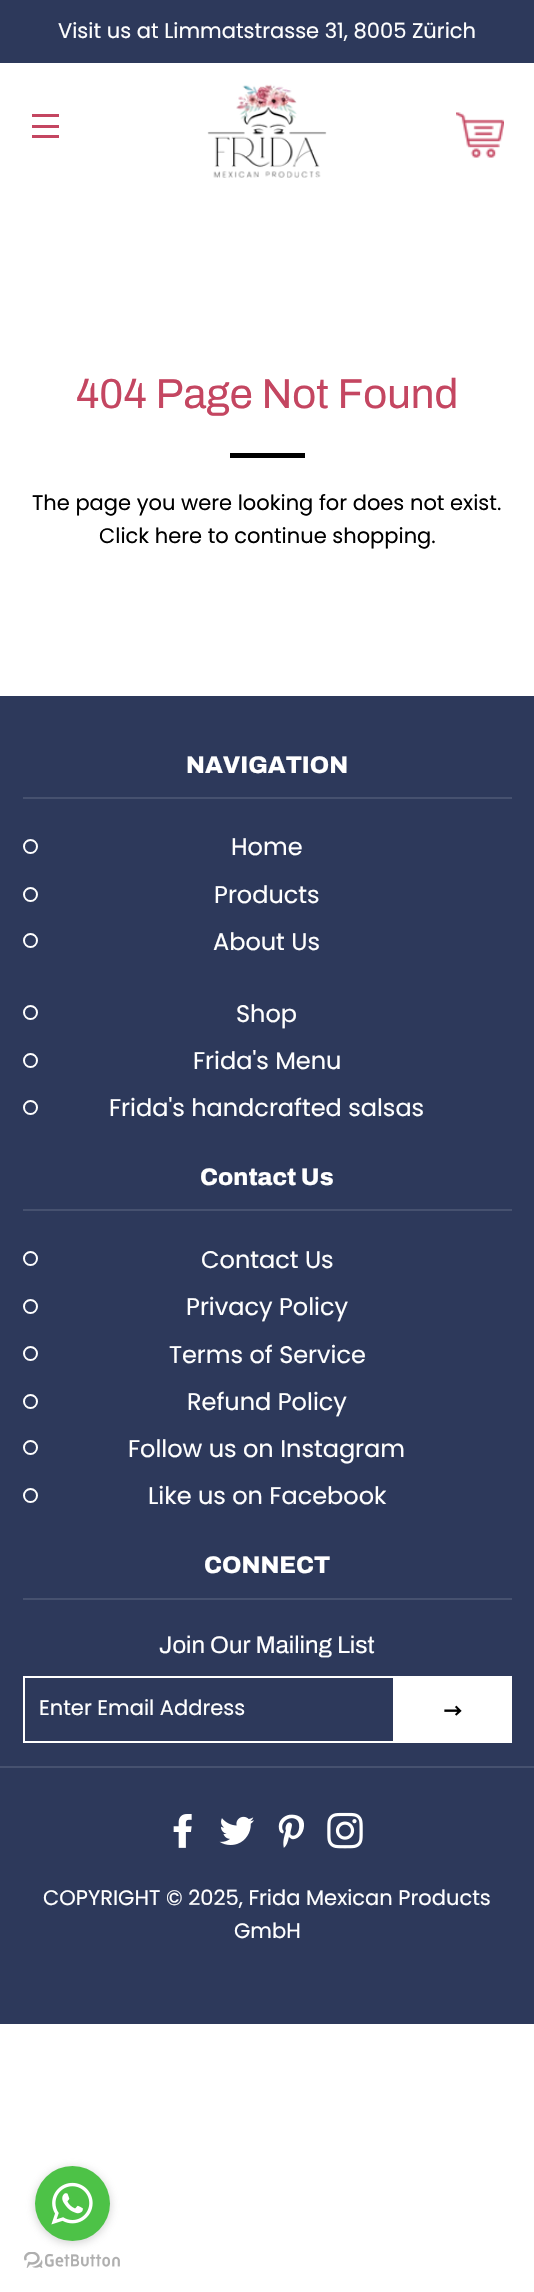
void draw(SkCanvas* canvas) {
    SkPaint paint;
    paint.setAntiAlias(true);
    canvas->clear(0xFFFFFFFF);
    paint.setColor(0xFF2D395B);
    canvas->drawRect(SkRect::MakeXYWH(0, 0, 534, 63), paint);
    SkFont font1(fontMgr->matchFamilyStyle("Poppins", SkFontStyle::Normal()), 21);
    font1.setSubpixel(true);
    paint.setColor(0xFFFFFFFF);
    canvas->drawString("Visit us at Limmatstrasse 31, 8005 Zürich", 58, 38, font1, paint);
    paint.setColor(0xFFC44661);
    canvas->drawRect(SkRect::MakeXYWH(32, 114, 27, 3), paint);
    canvas->drawRect(SkRect::MakeXYWH(32, 125, 27, 3), paint);
    canvas->drawRect(SkRect::MakeXYWH(32, 135, 27, 3), paint);
    canvas->drawImageRect(SkImages::DeferredFromEncodedData(SkData::MakeFromFileName("img1.png")), SkRect::MakeXYWH(207, 84, 120, 94), SkSamplingOptions());
    canvas->drawImageRect(SkImages::DeferredFromEncodedData(SkData::MakeFromFileName("img2.png")), SkRect::MakeXYWH(456, 112, 48, 46), SkSamplingOptions());
    canvas->drawImageRect(SkImages::DeferredFromEncodedData(SkData::MakeFromFileName("img3.png")), SkRect::MakeXYWH(257, 175, 64, 3), SkSamplingOptions());
    SkFont font2(fontMgr->matchFamilyStyle("Archivo", SkFontStyle::Normal()), 42);
    font2.setSubpixel(true);
    canvas->drawString("404 Page Not Found", 76, 408, font2, paint);
    paint.setColor(0xFF000000);
    canvas->drawRect(SkRect::MakeXYWH(230, 453, 75, 5), paint);
    canvas->drawString("The page you were looking for does not exist.", 32, 510, font1, paint);
    canvas->drawString("Click here to continue shopping.", 99, 543, font1, paint);
    paint.setColor(0xFF2D395B);
    canvas->drawRect(SkRect::MakeXYWH(0, 696, 534, 1328), paint);
    paint.setColor(0xFF46516F);
    canvas->drawRect(SkRect::MakeXYWH(23, 797, 489, 2), paint);
    SkFont font3(fontMgr->matchFamilyStyle("Archivo", SkFontStyle(600, SkFontStyle::kNormal_Width, SkFontStyle::kUpright_Slant)), 24);
    font3.setSubpixel(true);
    paint.setColor(0xFFFFFFFF);
    canvas->drawString("NAVIGATION", 186, 773, font3, paint);
    paint.setStyle(SkPaint::kStroke_Style);
    paint.setStrokeWidth(2);
    canvas->drawCircle(30.5f, 846.5f, 6.5f, paint);
    SkFont font4(fontMgr->matchFamilyStyle("Poppins", SkFontStyle::Normal()), 24);
    font4.setSubpixel(true);
    paint.setStyle(SkPaint::kFill_Style);
    canvas->drawString("Home", 231, 855, font4, paint);
    paint.setStyle(SkPaint::kStroke_Style);
    canvas->drawCircle(30.5f, 894.5f, 6.5f, paint);
    paint.setStyle(SkPaint::kFill_Style);
    canvas->drawString("Products", 214, 903, font4, paint);
    paint.setStyle(SkPaint::kStroke_Style);
    canvas->drawCircle(30.5f, 940.5f, 6.5f, paint);
    paint.setStyle(SkPaint::kFill_Style);
    canvas->drawString("About Us", 213, 950, font4, paint);
    paint.setStyle(SkPaint::kStroke_Style);
    canvas->drawCircle(30.5f, 1012.5f, 6.5f, paint);
    paint.setStyle(SkPaint::kFill_Style);
    canvas->drawString("Shop", 236, 1022, font4, paint);
    paint.setStyle(SkPaint::kStroke_Style);
    canvas->drawCircle(30.5f, 1060.5f, 6.5f, paint);
    paint.setStyle(SkPaint::kFill_Style);
    canvas->drawString("Frida's Menu", 193, 1069, font4, paint);
    paint.setStyle(SkPaint::kStroke_Style);
    canvas->drawCircle(30.5f, 1107.5f, 6.5f, paint);
    paint.setStyle(SkPaint::kFill_Style);
    canvas->drawString("Frida's handcrafted salsas", 109, 1116, font4, paint);
    paint.setColor(0xFF46516F);
    canvas->drawRect(SkRect::MakeXYWH(23, 1209, 489, 2), paint);
    paint.setColor(0xFFFFFFFF);
    canvas->drawString("Contact Us", 200, 1185, font3, paint);
    paint.setStyle(SkPaint::kStroke_Style);
    canvas->drawCircle(30.5f, 1258.5f, 6.5f, paint);
    paint.setStyle(SkPaint::kFill_Style);
    canvas->drawString("Contact Us", 201, 1268, font4, paint);
    paint.setStyle(SkPaint::kStroke_Style);
    canvas->drawCircle(30.5f, 1306.5f, 6.5f, paint);
    paint.setStyle(SkPaint::kFill_Style);
    canvas->drawString("Privacy Policy", 186, 1315, font4, paint);
    paint.setStyle(SkPaint::kStroke_Style);
    canvas->drawCircle(30.5f, 1353.5f, 6.5f, paint);
    paint.setStyle(SkPaint::kFill_Style);
    canvas->drawString("Terms of Service", 169, 1363, font4, paint);
    paint.setStyle(SkPaint::kStroke_Style);
    canvas->drawCircle(30.5f, 1401.5f, 6.5f, paint);
    paint.setStyle(SkPaint::kFill_Style);
    canvas->drawString("Refund Policy", 187, 1410, font4, paint);
    paint.setStyle(SkPaint::kStroke_Style);
    canvas->drawCircle(30.5f, 1447.5f, 6.5f, paint);
    paint.setStyle(SkPaint::kFill_Style);
    canvas->drawString("Follow us on Instagram", 128, 1457, font4, paint);
    paint.setStyle(SkPaint::kStroke_Style);
    canvas->drawCircle(30.5f, 1495.5f, 6.5f, paint);
    paint.setStyle(SkPaint::kFill_Style);
    canvas->drawString("Like us on Facebook", 148, 1504, font4, paint);
    paint.setColor(0xFF46516F);
    canvas->drawRect(SkRect::MakeXYWH(23, 1598, 489, 2), paint);
    paint.setColor(0xFFFFFFFF);
    canvas->drawString("CONNECT", 204, 1573, font3, paint);
    SkFont font5(fontMgr->matchFamilyStyle("Archivo", SkFontStyle::Normal()), 24);
    font5.setSubpixel(true);
    canvas->drawString("Join Our Mailing List", 159, 1653, font5, paint);
    paint.setStyle(SkPaint::kStroke_Style);
    canvas->drawRect(SkRect::MakeXYWH(24, 1677, 370, 65), paint);
    paint.setStyle(SkPaint::kFill_Style);
    canvas->drawString("Enter Email Address", 39, 1715, font1, paint);
    canvas->drawRect(SkRect::MakeXYWH(395, 1676, 117, 67), paint);
    canvas->drawImageRect(SkImages::DeferredFromEncodedData(SkData::MakeFromFileName("img4.png")), SkRect::MakeXYWH(444, 1705, 18, 11), SkSamplingOptions());
    paint.setColor(0xFF46516F);
    canvas->drawRect(SkRect::MakeXYWH(0, 1766, 534, 2), paint);
    canvas->drawImageRect(SkImages::DeferredFromEncodedData(SkData::MakeFromFileName("img5.png")), SkRect::MakeXYWH(173, 1814, 19, 34), SkSamplingOptions());
    canvas->drawImageRect(SkImages::DeferredFromEncodedData(SkData::MakeFromFileName("img6.png")), SkRect::MakeXYWH(219, 1816, 35, 29), SkSamplingOptions());
    canvas->drawImageRect(SkImages::DeferredFromEncodedData(SkData::MakeFromFileName("img7.png")), SkRect::MakeXYWH(278, 1814, 26, 34), SkSamplingOptions());
    canvas->drawImageRect(SkImages::DeferredFromEncodedData(SkData::MakeFromFileName("img8.png")), SkRect::MakeXYWH(327, 1812, 36, 37), SkSamplingOptions());
    paint.setColor(0xFFFFFFFF);
    canvas->drawString("COPYRIGHT © 2025, Frida Mexican Products", 43, 1905, font1, paint);
    canvas->drawString("GmbH", 234, 1938, font1, paint);
    canvas->drawImageRect(SkImages::DeferredFromEncodedData(SkData::MakeFromFileName("img10.png")), SkRect::MakeXYWH(24, 2252, 96, 16), SkSamplingOptions());
    paint.setColor(0x66888888);
    paint.setMaskFilter(SkMaskFilter::MakeBlur(kNormal_SkBlurStyle, 5));
    canvas->drawRoundRect(SkRect::MakeXYWH(35, 2168, 75, 75), 37.5f, 37.5f, paint);
    paint.setMaskFilter(nullptr);
    paint.setColor(0xFF4DC247);
    canvas->drawCircle(72.5f, 2203.5f, 37.5f, paint);
    canvas->drawImageRect(SkImages::DeferredFromEncodedData(SkData::MakeFromFileName("img9.png")), SkRect::MakeXYWH(51, 2182, 42, 43), SkSamplingOptions());
}
